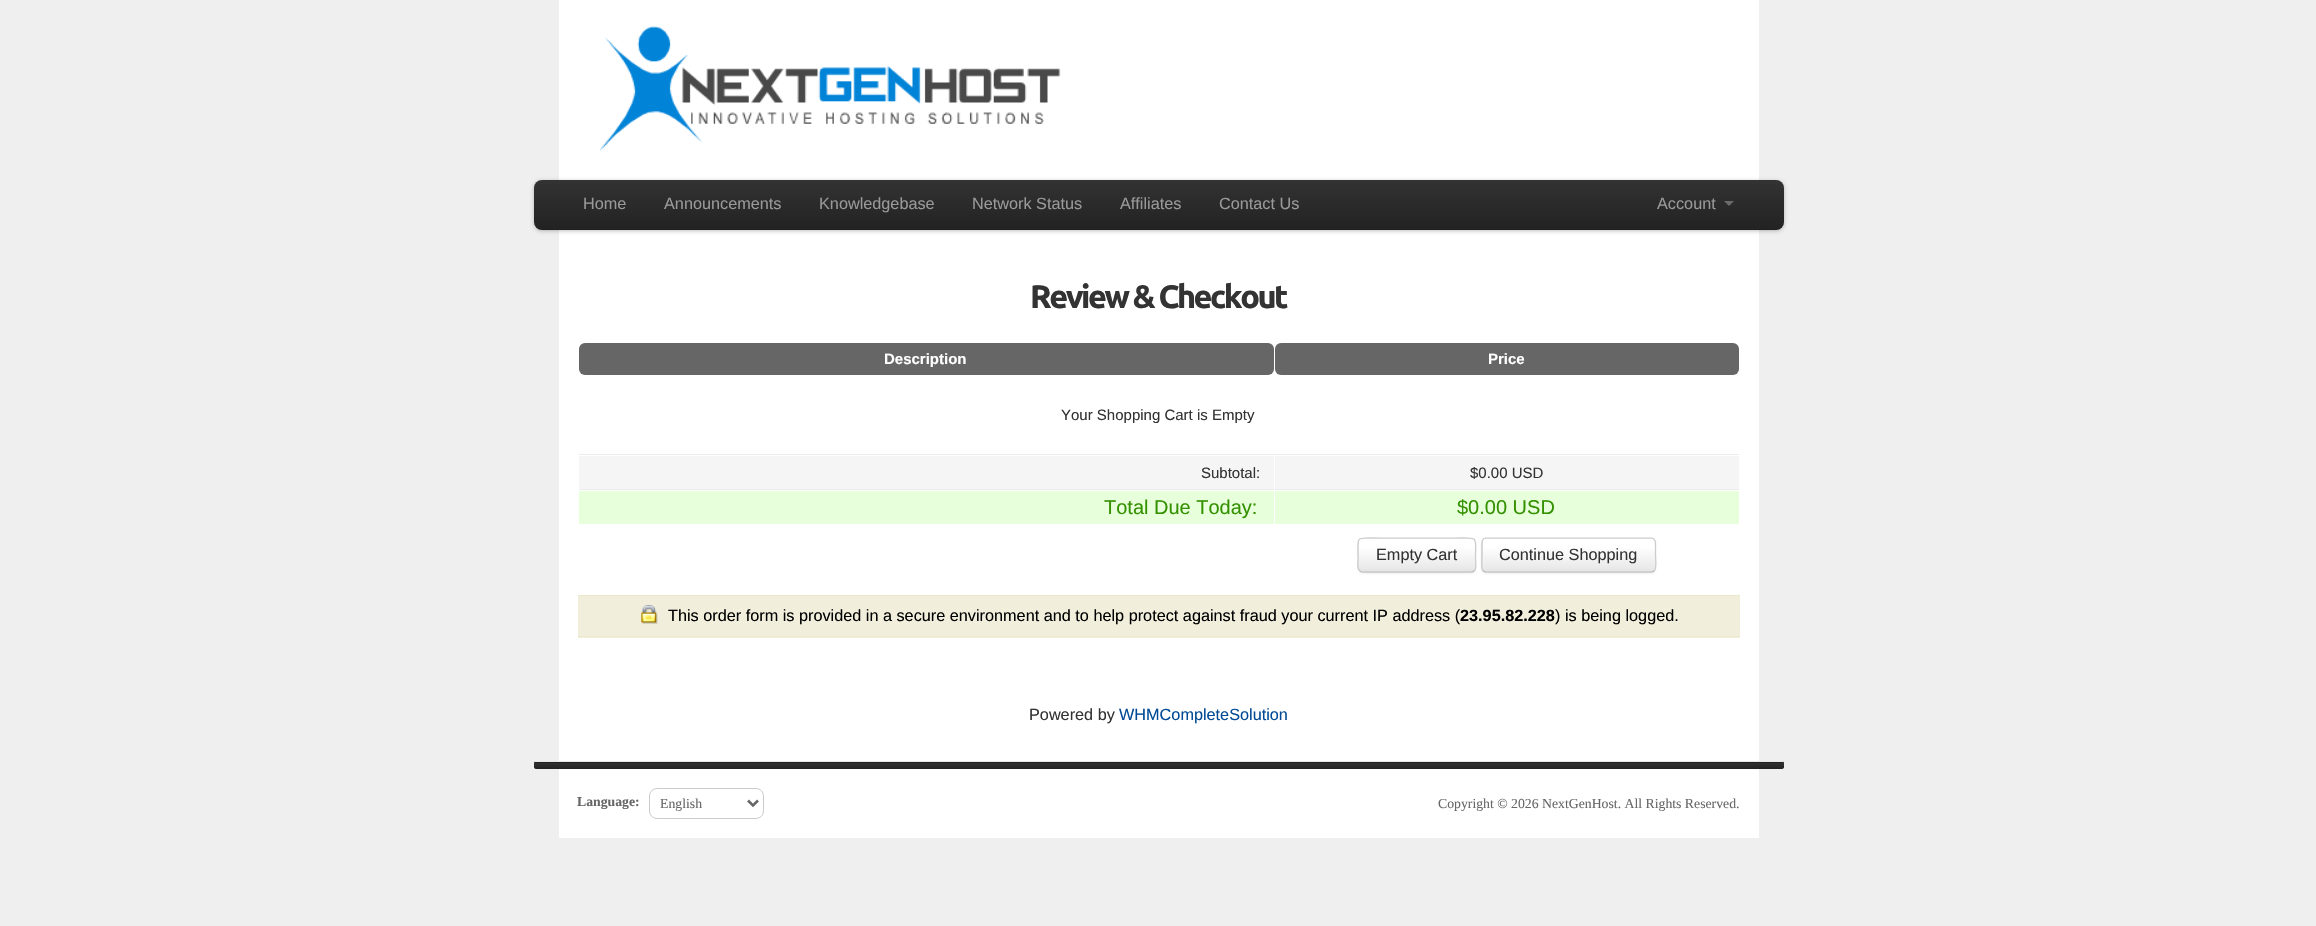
void draw(SkCanvas* canvas) {
    SkPaint paint;
    paint.setAntiAlias(true);
    auto spacedText = [&](const char* s, float x, float y, const SkFont& font, const SkPaint& ink, float letter, float word) {
        std::vector<SkGlyphID> glyphs(font.countText(s, strlen(s), SkTextEncoding::kUTF8));
        std::vector<float> xs(glyphs.size());
        font.textToGlyphs(s, strlen(s), SkTextEncoding::kUTF8, glyphs);
        font.getXPos(glyphs, xs, x);
        float extra = 0;
        for (size_t i = 0; i < glyphs.size(); i++) {
            xs[i] += extra;
            extra += letter + word * (glyphs[i] == font.unicharToGlyph(' '));
        }
        canvas->drawTextBlob(SkTextBlob::MakeFromPosHGlyphs(glyphs, xs, y, font), 0, 0, ink);
    };
    canvas->clear(0xFFEFEFEF);
    paint.setColor(0xFFFFFFFF);
    canvas->drawRect(SkRect::MakeXYWH(559, 0, 1200, 180), paint);
    canvas->drawImageRect(SkImages::DeferredFromEncodedData(SkData::MakeFromFileName("img1.png")), SkRect::MakeXYWH(599, 26, 462, 125), SkSamplingOptions());
    canvas->drawRect(SkRect::MakeXYWH(559, 230, 1200, 531), paint);
    paint.setColor(0x40000000);
    paint.setMaskFilter(SkMaskFilter::MakeBlur(kNormal_SkBlurStyle, 2));
    canvas->drawRoundRect(SkRect::MakeXYWH(534, 181, 1250, 50), 8, 8, paint);
    paint.setMaskFilter(nullptr);
    {
        const SkColor colors[] = {0xFF333333, 0xFF222222};
        const float stops[] = {0, 1};
        const SkPoint ends[] = {{1159, 180}, {1159, 230}};
        paint.setShader(SkGradientShader::MakeLinear(ends, colors, stops, 2, SkTileMode::kClamp));
        paint.setAlpha(255);
    }
    canvas->drawRoundRect(SkRect::MakeXYWH(534, 180, 1250, 50), 8, 8, paint);
    paint.setShader(nullptr);
    paint.setColor(0x1A000000);
    canvas->drawPath(SkPathBuilder().moveTo(534, 221).cubicTo(534, 226, 537, 230, 542, 230).lineTo(1776, 230).cubicTo(1781, 230, 1784, 226, 1784, 221).cubicTo(1784, 225, 1780, 229, 1776, 229).lineTo(541, 229).cubicTo(537, 229, 534, 225, 534, 221).close().detach(), paint);
    SkFont font1(fontMgr->matchFamilyStyle("Liberation Sans", SkFontStyle::Normal()), 16.25f);
    font1.setSubpixel(true);
    paint.setColor(0xFF999999);
    canvas->drawString("Home", 583, 209, font1, paint);
    canvas->drawString("Announcements", 664, 209, font1, paint);
    canvas->drawString("Knowledgebase", 819, 209, font1, paint);
    canvas->drawString("Network Status", 972, 209, font1, paint);
    canvas->drawString("Affiliates", 1120, 209, font1, paint);
    canvas->drawString("Contact Us", 1219, 209, font1, paint);
    canvas->drawString("Account", 1657, 209, font1, paint);
    paint.setColor(0xFF6B6B6B);
    canvas->drawPath(SkPathBuilder().moveTo(1724, 201).lineTo(1734, 201).lineTo(1729, 206).close().detach(), paint);
    SkFont font2(fontMgr->matchFamilyStyle("Ubuntu", SkFontStyle::Bold()), 32.5f);
    font2.setSubpixel(true);
    paint.setColor(0xFF333333);
    spacedText("Review & Checkout", 1030, 308, font2, paint, -2.5f, 0);
    paint.setColor(0xFF666666);
    canvas->drawRoundRect(SkRect::MakeXYWH(579, 343, 695, 32), 6, 6, paint);
    SkFont font3(fontMgr->matchFamilyStyle("Liberation Sans", SkFontStyle::Bold()), 15);
    font3.setSubpixel(true);
    paint.setColor(0xFFFFFFFF);
    canvas->drawString("Description", 884, 364, font3, paint);
    paint.setColor(0xFF666666);
    canvas->drawRoundRect(SkRect::MakeXYWH(1275, 343, 464, 32), 6, 6, paint);
    paint.setColor(0xFFFFFFFF);
    canvas->drawString("Price", 1488, 364, font3, paint);
    paint.setColor(0xFFEBEBEB);
    canvas->drawRect(SkRect::MakeXYWH(579, 454, 1160, 1), paint);
    SkFont font4(fontMgr->matchFamilyStyle("Liberation Sans", SkFontStyle::Normal()), 15);
    font4.setSubpixel(true);
    paint.setColor(0xFF333333);
    canvas->drawString("Your Shopping Cart is Empty", 1061, 420, font4, paint);
    paint.setColor(0xFFF5F5F5);
    canvas->drawRect(SkRect::MakeXYWH(579, 456, 695, 33), paint);
    paint.setColor(0xFFEBEBEB);
    canvas->drawRect(SkRect::MakeXYWH(579, 489, 695, 1), paint);
    paint.setColor(0xFF333333);
    canvas->drawString("Subtotal:", 1201, 478, font4, paint);
    paint.setColor(0xFFF5F5F5);
    canvas->drawRect(SkRect::MakeXYWH(1275, 456, 464, 33), paint);
    paint.setColor(0xFFEBEBEB);
    canvas->drawRect(SkRect::MakeXYWH(1275, 489, 464, 1), paint);
    paint.setColor(0xFF333333);
    canvas->drawString("$0.00 USD", 1470, 478, font4, paint);
    paint.setColor(0xFFE7FFDA);
    canvas->drawRect(SkRect::MakeXYWH(579, 491, 695, 33), paint);
    SkFont font5(fontMgr->matchFamilyStyle("Liberation Sans", SkFontStyle::Normal()), 20);
    font5.setSubpixel(true);
    paint.setColor(0xFF339100);
    canvas->drawString("Total Due Today:", 1104, 514, font5, paint);
    paint.setColor(0xFFE7FFDA);
    canvas->drawRect(SkRect::MakeXYWH(1275, 491, 464, 33), paint);
    paint.setColor(0xFF339100);
    canvas->drawString("$0.00 USD", 1457, 514, font5, paint);
    paint.setColor(0x0D000000);
    paint.setMaskFilter(SkMaskFilter::MakeBlur(kNormal_SkBlurStyle, 1));
    canvas->drawRoundRect(SkRect::MakeXYWH(1358, 539, 118, 35), 5, 5, paint);
    paint.setMaskFilter(nullptr);
    paint.setColor(0xFFE6E6E6);
    canvas->drawRoundRect(SkRect::MakeXYWH(1358, 538, 118, 35), 5, 5, paint);
    {
        const SkColor colors[] = {0xFFFFFFFF, 0xFFFFFFFF, 0xFFE6E6E6};
        const float stops[] = {0, 0.25f, 1};
        const SkPoint ends[] = {{1417, 539}, {1417, 571}};
        paint.setShader(SkGradientShader::MakeLinear(ends, colors, stops, 3, SkTileMode::kClamp));
        paint.setAlpha(255);
    }
    canvas->drawRect(SkRect::MakeXYWH(1359, 539, 116, 30), paint);
    paint.setShader(nullptr);
    paint.setColor(0x33FFFFFF);
    canvas->drawPath(SkPathBuilder().moveTo(1362, 540).lineTo(1471, 540).cubicTo(1473, 540, 1475, 542, 1475, 544).cubicTo(1475, 534, 1456, 539, 1453, 539).lineTo(1381, 539).cubicTo(1378, 539, 1359, 534, 1359, 544).cubicTo(1359, 542, 1360, 540, 1362, 540).close().detach(), paint);
    paint.setStyle(SkPaint::kStroke_Style);
    paint.setStrokeWidth(1.2f);
    paint.setColor(0xFFBBBBBB);
    canvas->drawPath(SkPathBuilder().moveTo(1474.5f, 570.5f).cubicTo(1473.5f, 571.5f, 1472.5f, 572, 1471, 572).lineTo(1362.5f, 572).cubicTo(1361.5f, 572, 1360, 571.5f, 1359.5f, 570.5f).detach(), paint);
    paint.setColor(0xFFCCCCCC);
    canvas->drawPath(SkPathBuilder().moveTo(1359.5f, 570.5f).cubicTo(1356.5f, 568, 1358, 562.5f, 1358, 559).cubicTo(1358, 534.5f, 1354, 538, 1380.5f, 538).lineTo(1453, 538).cubicTo(1479.5f, 538, 1475.5f, 534.5f, 1475.5f, 559).cubicTo(1475.5f, 562.5f, 1477, 568, 1474.5f, 570.5f).detach(), paint);
    paint.setStyle(SkPaint::kFill_Style);
    paint.setColor(0xFF333333);
    canvas->drawString("Empty Cart", 1376, 560, font1, paint);
    paint.setColor(0x0D000000);
    paint.setMaskFilter(SkMaskFilter::MakeBlur(kNormal_SkBlurStyle, 1));
    canvas->drawRoundRect(SkRect::MakeXYWH(1481, 539, 175, 35), 5, 5, paint);
    paint.setMaskFilter(nullptr);
    paint.setColor(0xFFE6E6E6);
    canvas->drawRoundRect(SkRect::MakeXYWH(1481, 538, 175, 35), 5, 5, paint);
    {
        const SkColor colors[] = {0xFFFFFFFF, 0xFFFFFFFF, 0xFFE6E6E6};
        const float stops[] = {0, 0.25f, 1};
        const SkPoint ends[] = {{1569, 539}, {1569, 571}};
        paint.setShader(SkGradientShader::MakeLinear(ends, colors, stops, 3, SkTileMode::kClamp));
        paint.setAlpha(255);
    }
    canvas->drawRect(SkRect::MakeXYWH(1483, 539, 172, 30), paint);
    paint.setStyle(SkPaint::kStroke_Style);
    paint.setShader(nullptr);
    paint.setColor(0xFFBBBBBB);
    canvas->drawPath(SkPathBuilder().moveTo(1654.5f, 570.5f).cubicTo(1653.5f, 571.5f, 1652.5f, 572, 1651, 572).lineTo(1486, 572).cubicTo(1485, 572, 1484, 571.5f, 1483, 570.5f).detach(), paint);
    paint.setColor(0xFFCCCCCC);
    canvas->drawPath(SkPathBuilder().moveTo(1483, 570.5f).cubicTo(1480.5f, 568, 1482, 558, 1482, 555).lineTo(1482, 546.5f).cubicTo(1482, 543.5f, 1481.5f, 538, 1486, 538).lineTo(1651, 538).cubicTo(1656, 538, 1655.5f, 543.5f, 1655.5f, 546.5f).lineTo(1655.5f, 555).cubicTo(1655.5f, 558, 1657, 568, 1654.5f, 570.5f).detach(), paint);
    paint.setStyle(SkPaint::kFill_Style);
    paint.setColor(0xFF333333);
    canvas->drawString("Continue Shopping", 1499, 560, font1, paint);
    paint.setColor(0xFFF1EFDC);
    canvas->drawRect(SkRect::MakeXYWH(578, 596, 1162, 42), paint);
    paint.setColor(0xFFEBE8CD);
    canvas->drawRect(SkRect::MakeXYWH(578, 595, 1162, 1), paint);
    canvas->drawRect(SkRect::MakeXYWH(578, 636, 1162, 1), paint);
    canvas->drawImageRect(SkImages::DeferredFromEncodedData(SkData::MakeFromFileName("img2.png")), SkRect::MakeXYWH(641, 605, 17, 19), SkSamplingOptions());
    paint.setColor(0xFF000000);
    canvas->drawString("This order form is provided in a secure environment and to help protect against fraud your current IP address (", 668, 621, font1, paint);
    SkFont font6(fontMgr->matchFamilyStyle("Liberation Sans", SkFontStyle::Bold()), 16.25f);
    font6.setSubpixel(true);
    canvas->drawString("23.95.82.228", 1460, 621, font6, paint);
    canvas->drawString(") is being logged.", 1555, 621, font1, paint);
    paint.setColor(0xFF333333);
    canvas->drawString("Powered by", 1029, 720, font1, paint);
    paint.setColor(0xFF004A95);
    canvas->drawString("WHMCompleteSolution", 1119, 720, font1, paint);
    paint.setColor(0xFF222222);
    canvas->drawRoundRect(SkRect::MakeXYWH(534, 761, 1250, 8), 2.5f, 2.5f, paint);
    canvas->save();
    canvas->clipPath(SkPathBuilder().moveTo(536.5f, 761).lineTo(1781.5f, 761).cubicTo(1783, 761, 1784, 762, 1784, 763.5f).lineTo(1784, 766.5f).cubicTo(1784, 768, 1783, 769, 1781.5f, 769).lineTo(536.5f, 769).cubicTo(535, 769, 534, 768, 534, 766.5f).lineTo(534, 763.5f).cubicTo(534, 762, 535, 761, 536.5f, 761).close().detach(), true);
    {
        const SkColor colors[] = {0xFF333333, 0xFF222222};
        const float stops[] = {0, 1};
        const SkPoint ends[] = {{1159, 762}, {1159, 769}};
        paint.setShader(SkGradientShader::MakeLinear(ends, colors, stops, 2, SkTileMode::kClamp));
        paint.setAlpha(255);
    }
    canvas->drawPath(SkPathBuilder().moveTo(534, 763).lineTo(1784, 763).lineTo(1784, 766.5f).cubicTo(1784, 768, 1783, 769, 1781.5f, 769).lineTo(536.5f, 769).cubicTo(535, 769, 534, 768, 534, 766.5f).close().detach(), paint);
    canvas->restore();
    paint.setShader(nullptr);
    paint.setColor(0xFFE8E8E8);
    canvas->drawRect(SkRect::MakeXYWH(535, 761, 1248, 1), paint);
    paint.setColor(0xFFFFFFFF);
    canvas->drawRect(SkRect::MakeXYWH(559, 769, 1200, 69), paint);
    SkFont font7(fontMgr->matchFamilyStyle("Liberation Serif", SkFontStyle::Bold()), 13.75f);
    font7.setSubpixel(true);
    paint.setColor(0xFF666666);
    canvas->drawString("Language:", 577, 806, font7, paint);
    paint.setStyle(SkPaint::kStroke_Style);
    paint.setStrokeWidth(1);
    paint.setColor(0xFFCCCCCC);
    canvas->drawRoundRect(SkRect::MakeXYWH(649.5f, 788.5f, 114, 30), 7.5f, 7.5f, paint);
    paint.setStrokeWidth(2.5f);
    paint.setColor(0xFF666666);
    canvas->drawPath(SkPathBuilder().moveTo(748, 800.5f).lineTo(753, 805.5f).lineTo(758, 800.5f).detach(), paint);
    SkFont font8(fontMgr->matchFamilyStyle("Liberation Serif", SkFontStyle::Normal()), 13.75f);
    font8.setSubpixel(true);
    paint.setStyle(SkPaint::kFill_Style);
    canvas->drawString("English", 660, 808, font8, paint);
    canvas->drawString("Copyright © 2026 NextGenHost. All Rights Reserved.", 1438, 808, font8, paint);
}
